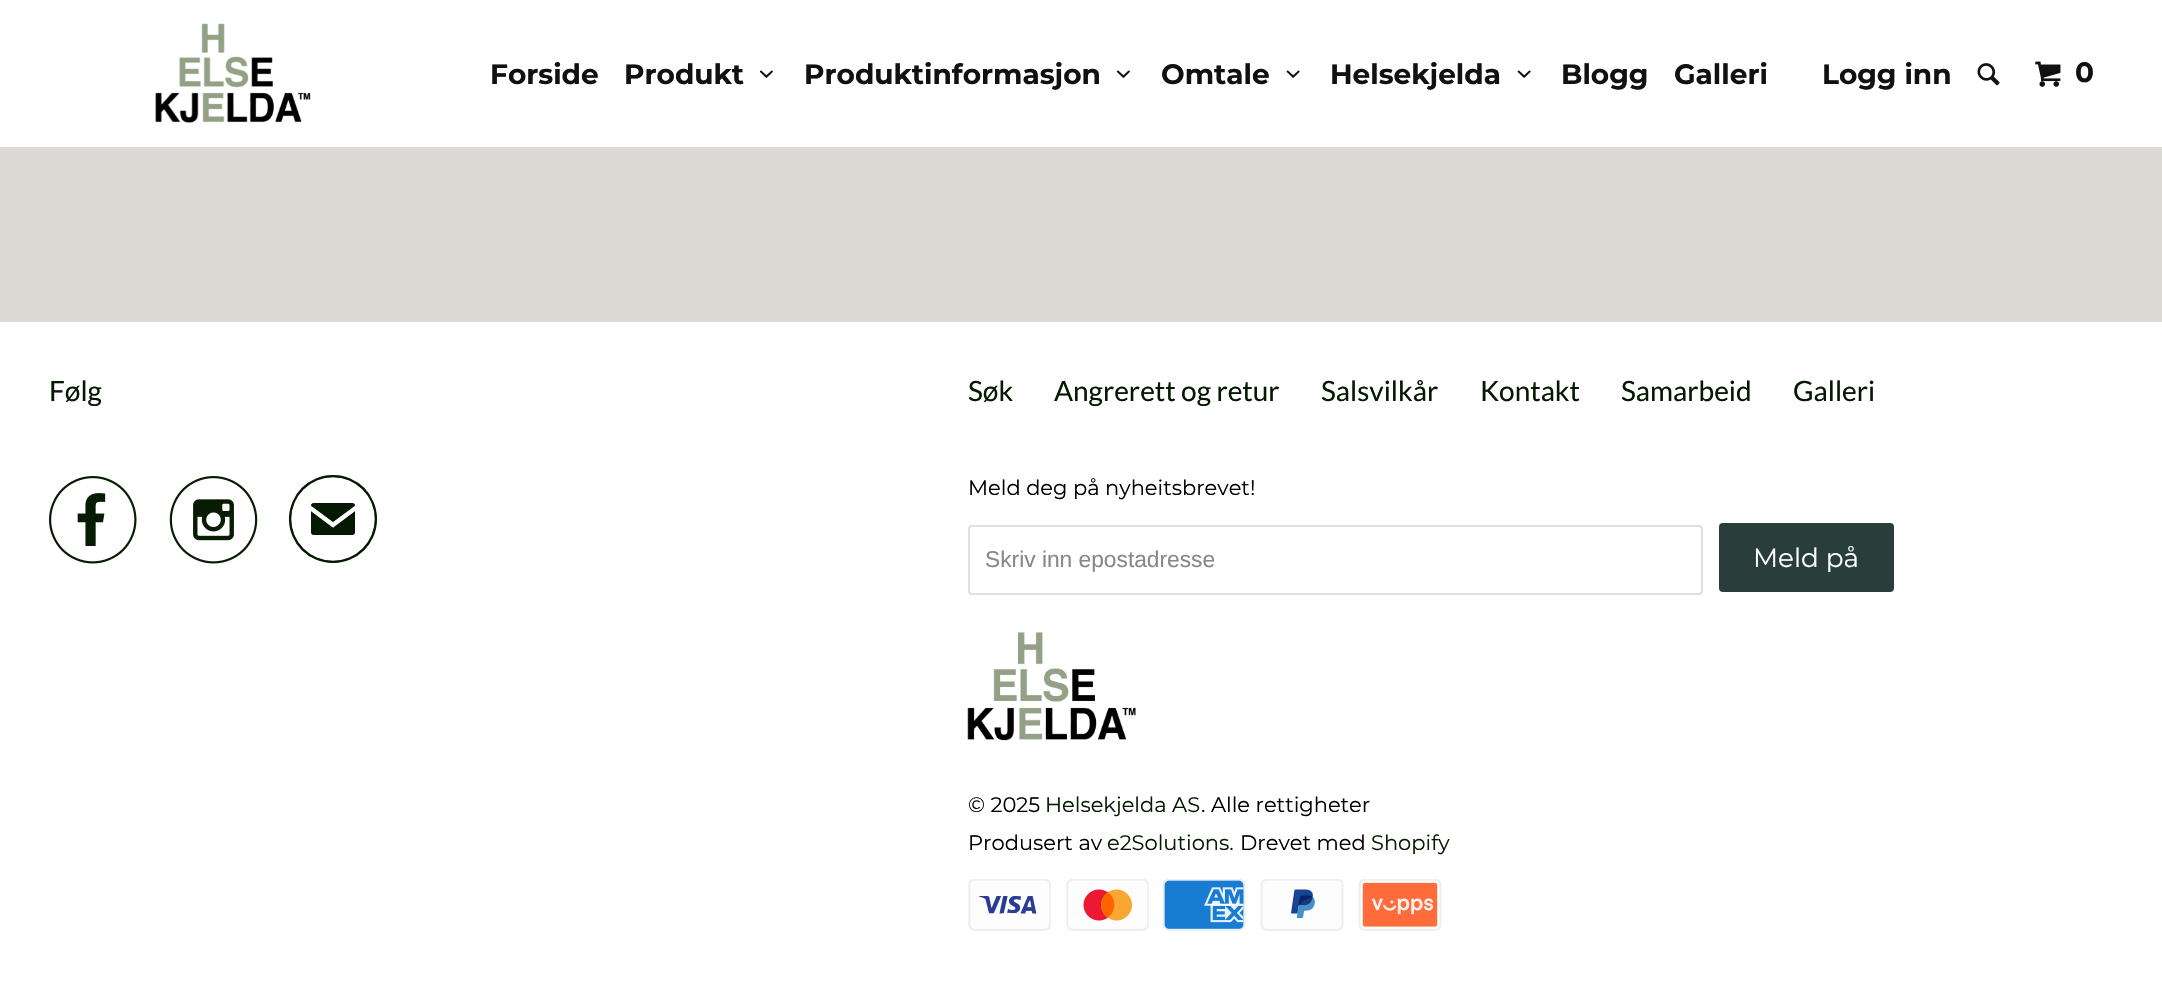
void draw(SkCanvas* canvas) {
    SkPaint paint;
    paint.setAntiAlias(true);
    canvas->clear(0xFFDCDAD4);
    paint.setColor(0xFFFFFFFF);
    canvas->drawRect(SkRect::MakeXYWH(0, 0, 2162, 147), paint);
    canvas->drawImageRect(SkImages::DeferredFromEncodedData(SkData::MakeFromFileName("img1.png")), SkRect::MakeXYWH(155, 23, 156, 100), SkSamplingOptions());
    SkFont font1(fontMgr->matchFamilyStyle("Montserrat", SkFontStyle::Bold()), 28);
    font1.setSubpixel(true);
    paint.setColor(0xFF111111);
    canvas->drawString("Forside", 490, 84, font1, paint);
    canvas->drawString("Produkt", 624, 84, font1, paint);
    canvas->drawImageRect(SkImages::DeferredFromEncodedData(SkData::MakeFromFileName("img2.png")), SkRect::MakeXYWH(759, 70, 14, 8), SkSamplingOptions());
    canvas->drawString("Produktinformasjon", 804, 84, font1, paint);
    canvas->drawImageRect(SkImages::DeferredFromEncodedData(SkData::MakeFromFileName("img2.png")), SkRect::MakeXYWH(1116, 70, 14, 8), SkSamplingOptions());
    canvas->drawString("Omtale", 1161, 84, font1, paint);
    canvas->drawImageRect(SkImages::DeferredFromEncodedData(SkData::MakeFromFileName("img3.png")), SkRect::MakeXYWH(1286, 70, 14, 8), SkSamplingOptions());
    canvas->drawString("Helsekjelda", 1330, 84, font1, paint);
    canvas->drawImageRect(SkImages::DeferredFromEncodedData(SkData::MakeFromFileName("img3.png")), SkRect::MakeXYWH(1517, 70, 14, 8), SkSamplingOptions());
    canvas->drawString("Blogg", 1561, 84, font1, paint);
    canvas->drawString("Galleri", 1674, 84, font1, paint);
    canvas->drawString("Logg inn", 1822, 84, font1, paint);
    canvas->drawImageRect(SkImages::DeferredFromEncodedData(SkData::MakeFromFileName("img4.png")), SkRect::MakeXYWH(1977, 63, 23, 23), SkSamplingOptions());
    canvas->drawImageRect(SkImages::DeferredFromEncodedData(SkData::MakeFromFileName("img5.png")), SkRect::MakeXYWH(2035, 61, 26, 26), SkSamplingOptions());
    canvas->drawString("0", 2075, 82, font1, paint);
    paint.setColor(0xFFFFFFFF);
    canvas->drawRect(SkRect::MakeXYWH(0, 322, 2162, 676), paint);
    SkFont font2(fontMgr->matchFamilyStyle("Lato", SkFontStyle::Normal()), 28);
    font2.setSubpixel(true);
    paint.setColor(0xFF031900);
    canvas->drawString("Følg", 49, 401, font2, paint);
    canvas->drawImageRect(SkImages::DeferredFromEncodedData(SkData::MakeFromFileName("img6.png")), SkRect::MakeXYWH(49, 476, 88, 88), SkSamplingOptions());
    canvas->drawImageRect(SkImages::DeferredFromEncodedData(SkData::MakeFromFileName("img7.png")), SkRect::MakeXYWH(169, 476, 89, 88), SkSamplingOptions());
    SkFont font3(fontMgr->matchFamilyStyle("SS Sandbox", SkFontStyle::Normal()), 88);
    font3.setSubpixel(true);
    canvas->drawString("✉", 289, 563, font3, paint);
    canvas->drawString("Søk", 968, 401, font2, paint);
    canvas->drawString("Angrerett og retur", 1054, 401, font2, paint);
    canvas->drawString("Salsvilkår", 1321, 401, font2, paint);
    canvas->drawString("Kontakt", 1480, 401, font2, paint);
    canvas->drawString("Samarbeid", 1621, 401, font2, paint);
    canvas->drawString("Galleri", 1793, 401, font2, paint);
    SkFont font4(fontMgr->matchFamilyStyle("Montserrat", SkFontStyle::Normal()), 21);
    font4.setSubpixel(true);
    paint.setColor(0xFF000000);
    canvas->drawString("Meld deg på nyheitsbrevet!", 968, 495, font4, paint);
    paint.setStyle(SkPaint::kStroke_Style);
    paint.setStrokeWidth(2);
    paint.setColor(0xFFDFDFDF);
    canvas->drawRoundRect(SkRect::MakeXYWH(969, 526, 733, 68), 3, 3, paint);
    SkFont font5(fontMgr->matchFamilyStyle("Liberation Sans", SkFontStyle::Normal()), 22.75f);
    font5.setSubpixel(true);
    paint.setStyle(SkPaint::kFill_Style);
    paint.setColor(0xFF888888);
    canvas->drawString("Skriv inn epostadresse", 985, 567, font5, paint);
    paint.setColor(0xFF293E3B);
    canvas->drawRoundRect(SkRect::MakeXYWH(1719, 523, 175, 69), 4, 4, paint);
    SkFont font6(fontMgr->matchFamilyStyle("Montserrat", SkFontStyle::Normal()), 26.25f);
    font6.setSubpixel(true);
    paint.setColor(0xFFFFFFFF);
    canvas->drawString("Meld på", 1753, 567, font6, paint);
    canvas->drawImageRect(SkImages::DeferredFromEncodedData(SkData::MakeFromFileName("img8.png")), SkRect::MakeXYWH(967, 632, 169, 109), SkSamplingOptions());
    paint.setColor(0xFF000000);
    canvas->drawString("© 2025", 968, 812, font4, paint);
    paint.setColor(0xFF031900);
    canvas->drawString("Helsekjelda AS", 1045, 812, font4, paint);
    paint.setColor(0xFF000000);
    canvas->drawString(". Alle rettigheter", 1201, 812, font4, paint);
    canvas->drawString("Produsert av", 968, 850, font4, paint);
    paint.setColor(0xFF031900);
    canvas->drawString("e2Solutions.", 1107, 850, font4, paint);
    paint.setColor(0xFF000000);
    canvas->drawString("Drevet med", 1240, 850, font4, paint);
    paint.setColor(0xFF031900);
    canvas->drawString("Shopify", 1371, 850, font4, paint);
    canvas->drawImageRect(SkImages::DeferredFromEncodedData(SkData::MakeFromFileName("img9.png")), SkRect::MakeXYWH(968, 879, 83, 52), SkSamplingOptions());
    canvas->drawImageRect(SkImages::DeferredFromEncodedData(SkData::MakeFromFileName("img10.png")), SkRect::MakeXYWH(1066, 879, 83, 52), SkSamplingOptions());
    canvas->drawImageRect(SkImages::DeferredFromEncodedData(SkData::MakeFromFileName("img11.png")), SkRect::MakeXYWH(1162, 879, 84, 52), SkSamplingOptions());
    canvas->drawImageRect(SkImages::DeferredFromEncodedData(SkData::MakeFromFileName("img12.png")), SkRect::MakeXYWH(1260, 879, 84, 52), SkSamplingOptions());
    canvas->drawImageRect(SkImages::DeferredFromEncodedData(SkData::MakeFromFileName("img13.png")), SkRect::MakeXYWH(1358, 879, 84, 52), SkSamplingOptions());
}
